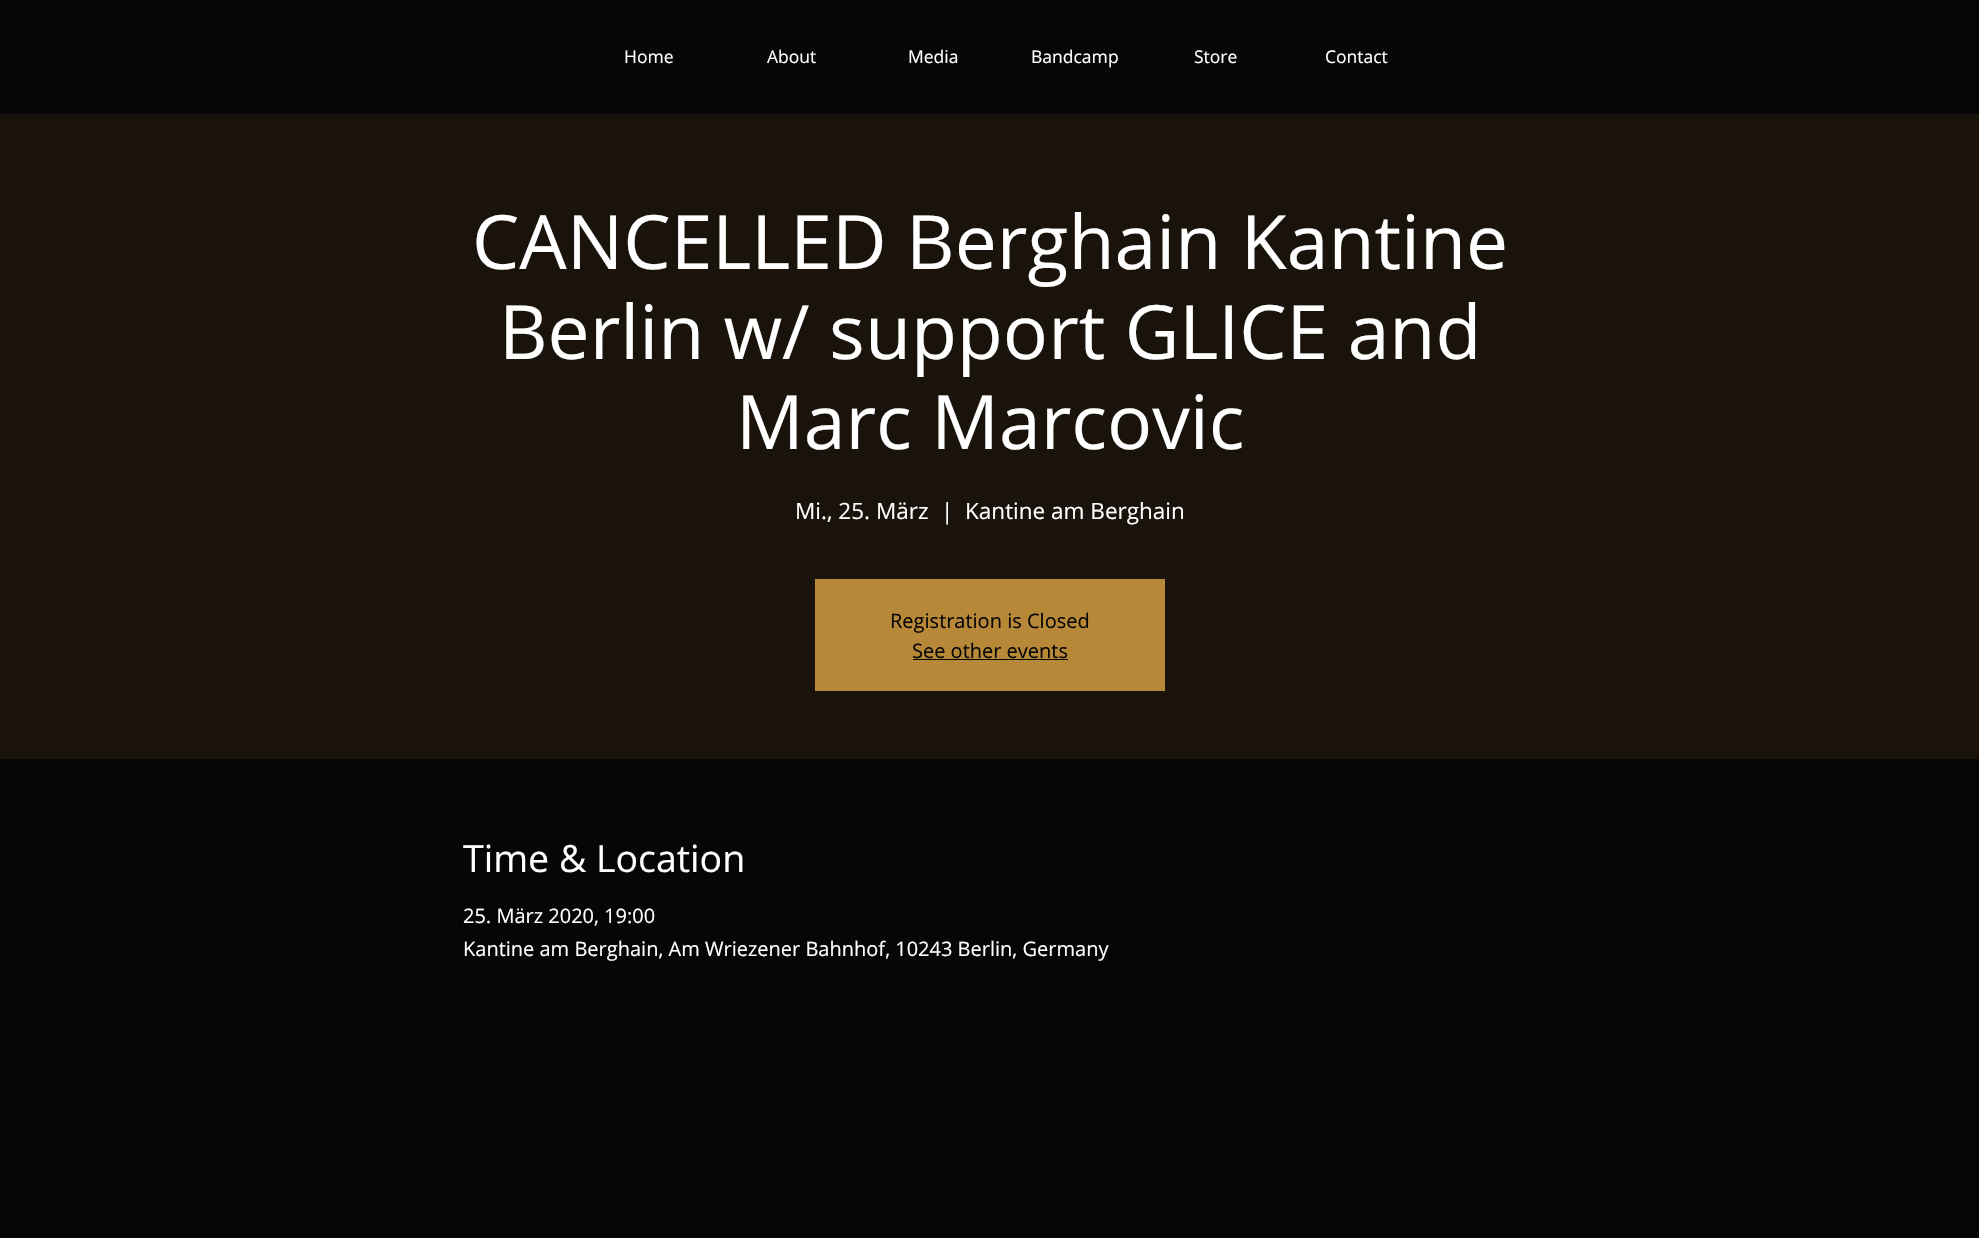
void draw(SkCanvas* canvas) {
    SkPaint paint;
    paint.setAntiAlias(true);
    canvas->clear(0xFF070606);
    SkFont font1(fontMgr->matchFamilyStyle("Open Sans", SkFontStyle::Normal()), 17.5f);
    font1.setSubpixel(true);
    paint.setColor(0xFFFFFFFF);
    canvas->drawString("Home", 624, 63, font1, paint);
    canvas->drawString("About", 767, 63, font1, paint);
    canvas->drawString("Media", 908, 63, font1, paint);
    canvas->drawString("Bandcamp", 1031, 63, font1, paint);
    canvas->drawString("Store", 1194, 63, font1, paint);
    canvas->drawString("Contact", 1325, 63, font1, paint);
    paint.setColor(0xFF19130B);
    canvas->drawRect(SkRect::MakeXYWH(0, 114, 1979, 645), paint);
    SkFont font2(fontMgr->matchFamilyStyle("Open Sans", SkFontStyle::Normal()), 75);
    font2.setSubpixel(true);
    paint.setColor(0xFFFFFFFF);
    canvas->drawString("CANCELLED Berghain Kantine", 472, 269, font2, paint);
    canvas->drawString("Berlin w/ support GLICE and", 499, 359, font2, paint);
    canvas->drawString("Marc Marcovic", 736, 449, font2, paint);
    SkFont font3(fontMgr->matchFamilyStyle("Open Sans", SkFontStyle::Normal()), 22.5f);
    font3.setSubpixel(true);
    canvas->drawString("Mi., 25. März", 795, 519, font3, paint);
    canvas->drawString("|", 941, 519, font3, paint);
    canvas->drawString("Kantine am Berghain", 965, 519, font3, paint);
    paint.setColor(0xFFB78837);
    canvas->drawRect(SkRect::MakeXYWH(815, 579, 350, 112), paint);
    SkFont font4(fontMgr->matchFamilyStyle("Open Sans", SkFontStyle::Normal()), 20);
    font4.setSubpixel(true);
    paint.setColor(0xFF070606);
    canvas->drawString("Registration is Closed", 890, 628, font4, paint);
    canvas->drawString("See other events", 912, 658, font4, paint);
    canvas->drawRect(SkRect::MakeXYWH(913, 659, 155, 1), paint);
    SkFont font5(fontMgr->matchFamilyStyle("Open Sans", SkFontStyle::Normal()), 37.5f);
    font5.setSubpixel(true);
    paint.setColor(0xFFFFFFFF);
    canvas->drawString("Time & Location", 463, 872, font5, paint);
    canvas->drawString("25. März 2020, 19:00", 463, 923, font4, paint);
    canvas->drawString("Kantine am Berghain, Am Wriezener Bahnhof, 10243 Berlin, Germany", 463, 956, font4, paint);
}
